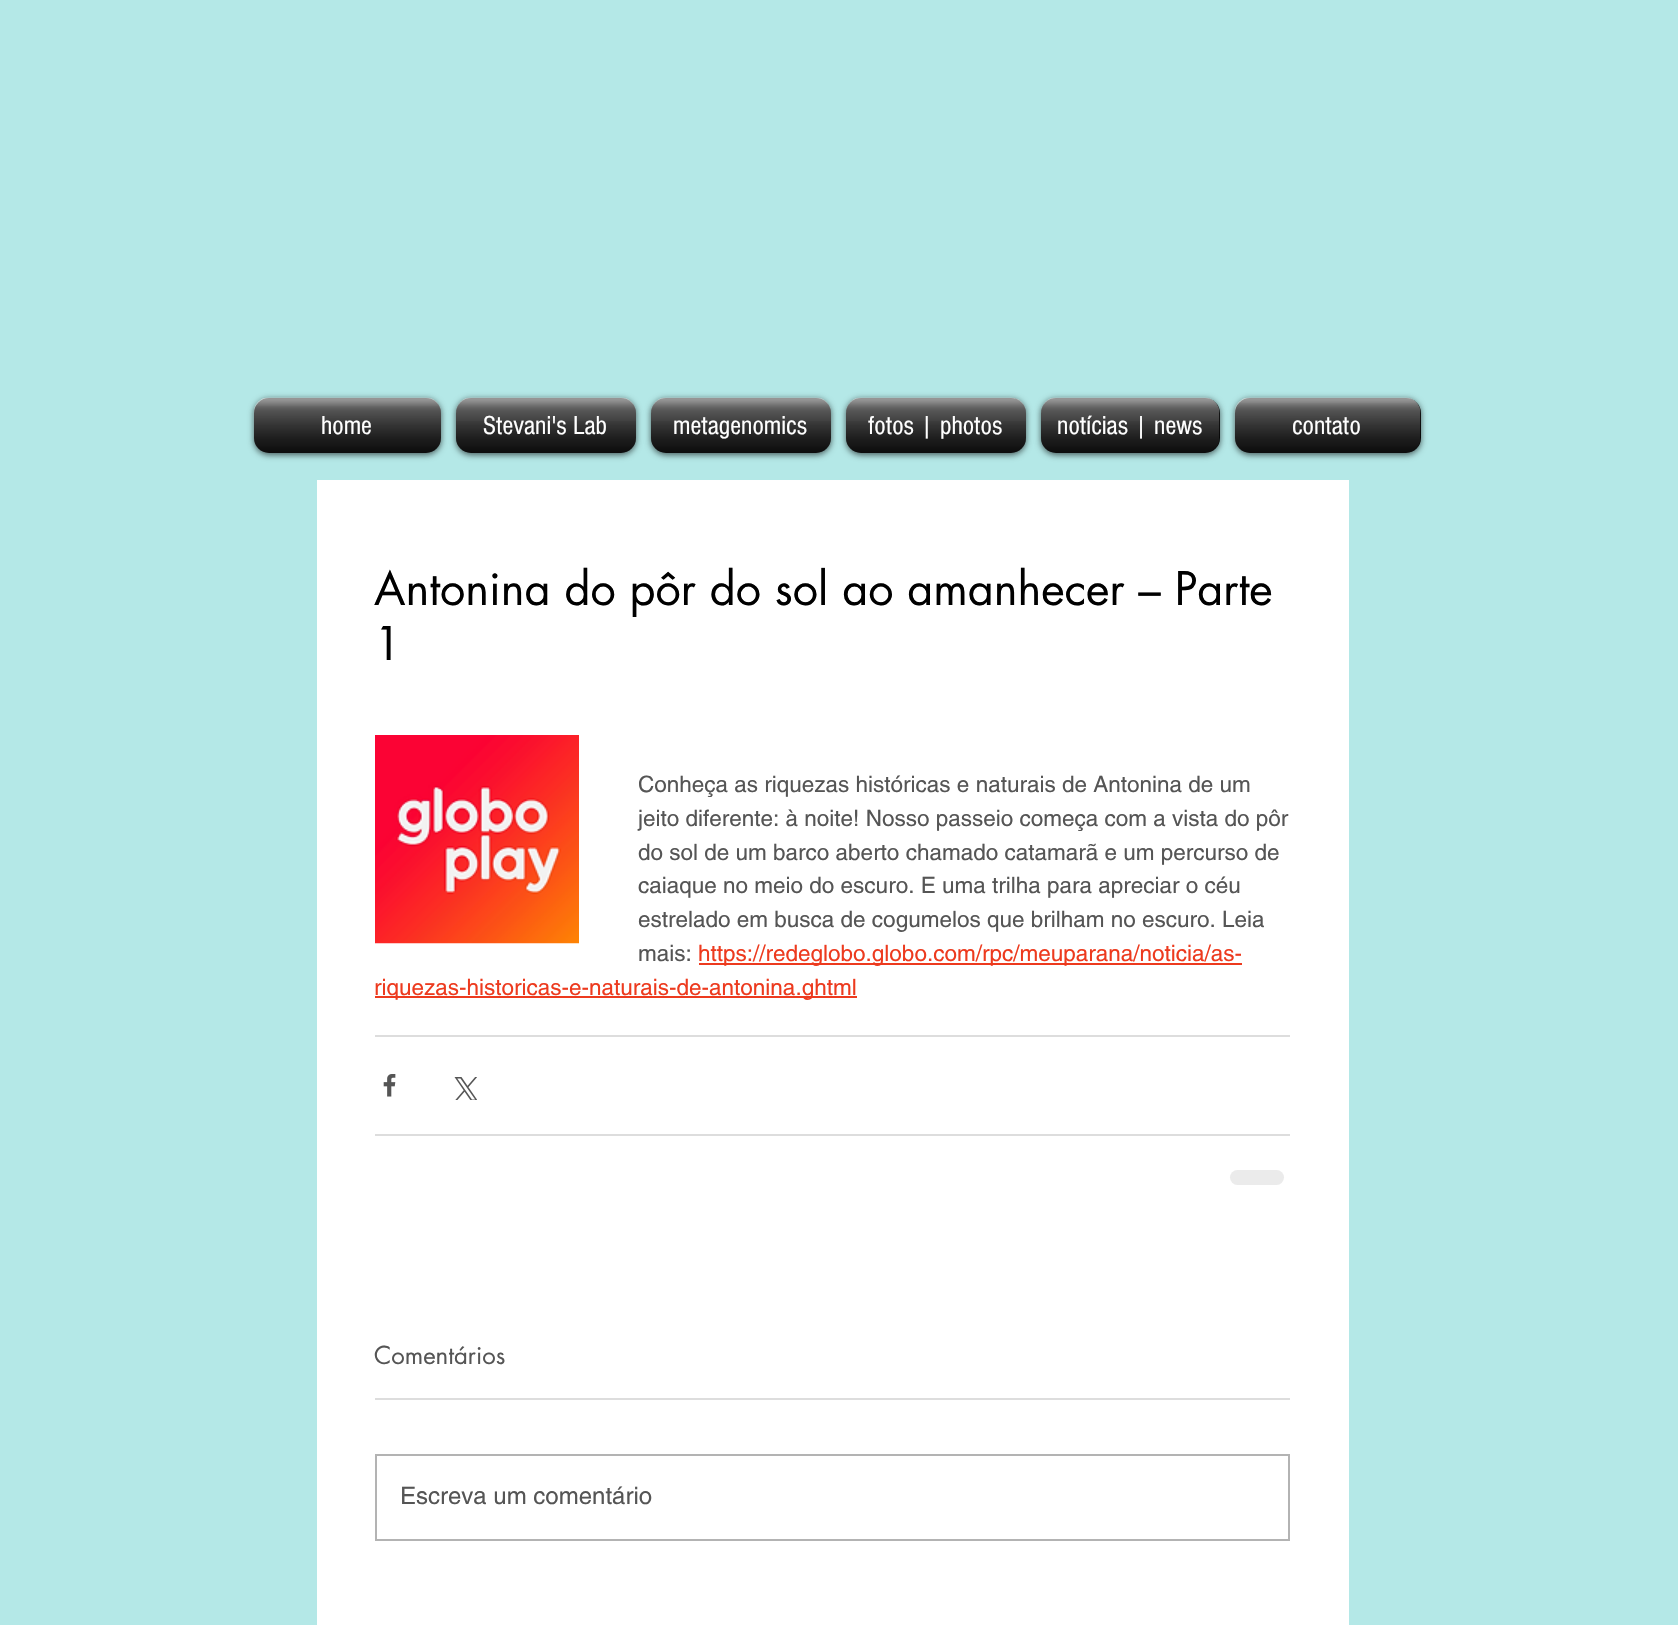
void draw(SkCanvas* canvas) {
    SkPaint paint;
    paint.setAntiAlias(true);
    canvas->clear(0xFFB4E8E7);
    paint.setColor(0x99000000);
    paint.setMaskFilter(SkMaskFilter::MakeBlur(kNormal_SkBlurStyle, 3));
    canvas->drawRoundRect(SkRect::MakeXYWH(254, 399, 187, 56), 15, 15, paint);
    paint.setMaskFilter(nullptr);
    paint.setColor(0xFF000000);
    canvas->drawRoundRect(SkRect::MakeXYWH(254, 398, 187, 55), 15, 15, paint);
    canvas->drawImageRect(SkImages::DeferredFromEncodedData(SkData::MakeFromFileName("img1.png")), SkRect::MakeXYWH(253, 397, 188, 56), SkSamplingOptions());
    canvas->drawImageRect(SkImages::DeferredFromEncodedData(SkData::MakeFromFileName("img2.png")), SkRect::MakeXYWH(253, 406, 188, 47), SkSamplingOptions());
    SkFont font1(fontMgr->matchFamilyStyle("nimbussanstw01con", SkFontStyle::Normal()), 27);
    font1.setSubpixel(true);
    paint.setColor(0xFFFFFFFF);
    canvas->drawString("home", 321, 434, font1, paint);
    paint.setColor(0x99000000);
    paint.setMaskFilter(SkMaskFilter::MakeBlur(kNormal_SkBlurStyle, 3));
    canvas->drawRoundRect(SkRect::MakeXYWH(456, 399, 180, 56), 15, 15, paint);
    paint.setMaskFilter(nullptr);
    paint.setColor(0xFF000000);
    canvas->drawRoundRect(SkRect::MakeXYWH(456, 398, 180, 55), 15, 15, paint);
    canvas->drawImageRect(SkImages::DeferredFromEncodedData(SkData::MakeFromFileName("img3.png")), SkRect::MakeXYWH(456, 397, 180, 56), SkSamplingOptions());
    canvas->drawImageRect(SkImages::DeferredFromEncodedData(SkData::MakeFromFileName("img4.png")), SkRect::MakeXYWH(456, 421, 180, 32), SkSamplingOptions());
    paint.setColor(0xFFFFFFFF);
    canvas->drawString("Stevani's Lab", 483, 434, font1, paint);
    paint.setColor(0x99000000);
    paint.setMaskFilter(SkMaskFilter::MakeBlur(kNormal_SkBlurStyle, 3));
    canvas->drawRoundRect(SkRect::MakeXYWH(651, 399, 180, 56), 15, 15, paint);
    paint.setMaskFilter(nullptr);
    paint.setColor(0xFF000000);
    canvas->drawRoundRect(SkRect::MakeXYWH(651, 398, 180, 55), 15, 15, paint);
    canvas->drawImageRect(SkImages::DeferredFromEncodedData(SkData::MakeFromFileName("img3.png")), SkRect::MakeXYWH(651, 397, 180, 56), SkSamplingOptions());
    canvas->drawImageRect(SkImages::DeferredFromEncodedData(SkData::MakeFromFileName("img4.png")), SkRect::MakeXYWH(651, 421, 180, 32), SkSamplingOptions());
    paint.setColor(0xFFFFFFFF);
    canvas->drawString("metagenomics", 673, 434, font1, paint);
    paint.setColor(0x99000000);
    paint.setMaskFilter(SkMaskFilter::MakeBlur(kNormal_SkBlurStyle, 3));
    canvas->drawRoundRect(SkRect::MakeXYWH(846, 399, 180, 56), 15, 15, paint);
    paint.setMaskFilter(nullptr);
    paint.setColor(0xFF000000);
    canvas->drawRoundRect(SkRect::MakeXYWH(846, 398, 180, 55), 15, 15, paint);
    canvas->drawImageRect(SkImages::DeferredFromEncodedData(SkData::MakeFromFileName("img5.png")), SkRect::MakeXYWH(846, 397, 180, 56), SkSamplingOptions());
    canvas->drawImageRect(SkImages::DeferredFromEncodedData(SkData::MakeFromFileName("img6.png")), SkRect::MakeXYWH(846, 421, 180, 32), SkSamplingOptions());
    paint.setColor(0xFFFFFFFF);
    canvas->drawString("fotos | photos", 868, 434, font1, paint);
    paint.setColor(0x99000000);
    paint.setMaskFilter(SkMaskFilter::MakeBlur(kNormal_SkBlurStyle, 3));
    canvas->drawRoundRect(SkRect::MakeXYWH(1041, 399, 179, 56), 15, 15, paint);
    paint.setMaskFilter(nullptr);
    paint.setColor(0xFF000000);
    canvas->drawRoundRect(SkRect::MakeXYWH(1041, 398, 179, 55), 15, 15, paint);
    canvas->drawImageRect(SkImages::DeferredFromEncodedData(SkData::MakeFromFileName("img7.png")), SkRect::MakeXYWH(1041, 397, 179, 56), SkSamplingOptions());
    canvas->drawImageRect(SkImages::DeferredFromEncodedData(SkData::MakeFromFileName("img8.png")), SkRect::MakeXYWH(1041, 421, 178, 32), SkSamplingOptions());
    paint.setColor(0xFFFFFFFF);
    canvas->drawString("notícias | news", 1057, 434, font1, paint);
    paint.setColor(0x99000000);
    paint.setMaskFilter(SkMaskFilter::MakeBlur(kNormal_SkBlurStyle, 3));
    canvas->drawRoundRect(SkRect::MakeXYWH(1235, 399, 186, 56), 15, 15, paint);
    paint.setMaskFilter(nullptr);
    paint.setColor(0xFF000000);
    canvas->drawRoundRect(SkRect::MakeXYWH(1235, 398, 186, 55), 15, 15, paint);
    canvas->drawImageRect(SkImages::DeferredFromEncodedData(SkData::MakeFromFileName("img9.png")), SkRect::MakeXYWH(1234, 397, 187, 56), SkSamplingOptions());
    canvas->drawImageRect(SkImages::DeferredFromEncodedData(SkData::MakeFromFileName("img10.png")), SkRect::MakeXYWH(1234, 403, 186, 50), SkSamplingOptions());
    paint.setColor(0xFFFFFFFF);
    canvas->drawString("contato", 1292, 434, font1, paint);
    canvas->drawRect(SkRect::MakeXYWH(317, 480, 1032, 1145), paint);
    SkFont font2(fontMgr->matchFamilyStyle("futura", SkFontStyle::Normal()), 45);
    font2.setSubpixel(true);
    paint.setColor(0xFF000000);
    canvas->drawString("Antonina do pôr do sol ao amanhecer – Parte", 374, 605, font2, paint);
    canvas->drawString("1", 374, 660, font2, paint);
    canvas->drawImageRect(SkImages::DeferredFromEncodedData(SkData::MakeFromFileName("img11.png")), SkRect::MakeXYWH(375, 735, 204, 209), SkSamplingOptions());
    SkFont font3(fontMgr->matchFamilyStyle("helvetica", SkFontStyle::Normal()), 22.5f);
    font3.setSubpixel(true);
    paint.setColor(0xFF555555);
    canvas->drawString("Conheça as riquezas históricas e naturais de Antonina de um", 638, 792, font3, paint);
    canvas->drawString("jeito diferente: à noite! Nosso passeio começa com a vista do pôr", 638, 826, font3, paint);
    canvas->drawString("do sol de um barco aberto chamado catamarã e um percurso de", 638, 860, font3, paint);
    canvas->drawString("caiaque no meio do escuro. E uma trilha para apreciar o céu", 638, 893, font3, paint);
    canvas->drawString("estrelado em busca de cogumelos que brilham no escuro. Leia", 638, 927, font3, paint);
    canvas->drawString("mais:", 638, 961, font3, paint);
    paint.setColor(0xFFED3A1E);
    canvas->drawRect(SkRect::MakeXYWH(699, 963, 543, 2), paint);
    canvas->drawString("https://redeglobo.globo.com/rpc/meuparana/noticia/as-", 698, 961, font3, paint);
    canvas->drawRect(SkRect::MakeXYWH(375, 996, 482, 2), paint);
    canvas->drawString("riquezas-historicas-e-naturais-de-antonina.ghtml", 374, 995, font3, paint);
    paint.setColor(0xFFDDDDDD);
    canvas->drawRect(SkRect::MakeXYWH(375, 1035, 915, 2), paint);
    canvas->drawImageRect(SkImages::DeferredFromEncodedData(SkData::MakeFromFileName("img12.png")), SkRect::MakeXYWH(383, 1074, 13, 23), SkSamplingOptions());
    canvas->drawImageRect(SkImages::DeferredFromEncodedData(SkData::MakeFromFileName("img13.png")), SkRect::MakeXYWH(454, 1077, 23, 23), SkSamplingOptions());
    canvas->drawRect(SkRect::MakeXYWH(375, 1134, 915, 2), paint);
    paint.setColor(0xFFEBEBEB);
    canvas->drawRoundRect(SkRect::MakeXYWH(1230, 1170, 54, 15), 7.5f, 7.5f, paint);
    SkFont font4(fontMgr->matchFamilyStyle("futura", SkFontStyle::Normal()), 24);
    font4.setSubpixel(true);
    paint.setColor(0xFF555555);
    canvas->drawString("Comentários", 374, 1364, font4, paint);
    paint.setColor(0xFFDDDDDD);
    canvas->drawRect(SkRect::MakeXYWH(375, 1398, 915, 2), paint);
    paint.setStyle(SkPaint::kStroke_Style);
    paint.setStrokeWidth(2);
    paint.setColor(0xFFB3B3B3);
    canvas->drawRect(SkRect::MakeXYWH(376, 1455, 913, 85), paint);
    SkFont font5(fontMgr->matchFamilyStyle("helvetica", SkFontStyle::Normal()), 24);
    font5.setSubpixel(true);
    paint.setStyle(SkPaint::kFill_Style);
    paint.setColor(0xFF555555);
    canvas->drawString("Escreva um comentário", 400, 1504, font5, paint);
}
